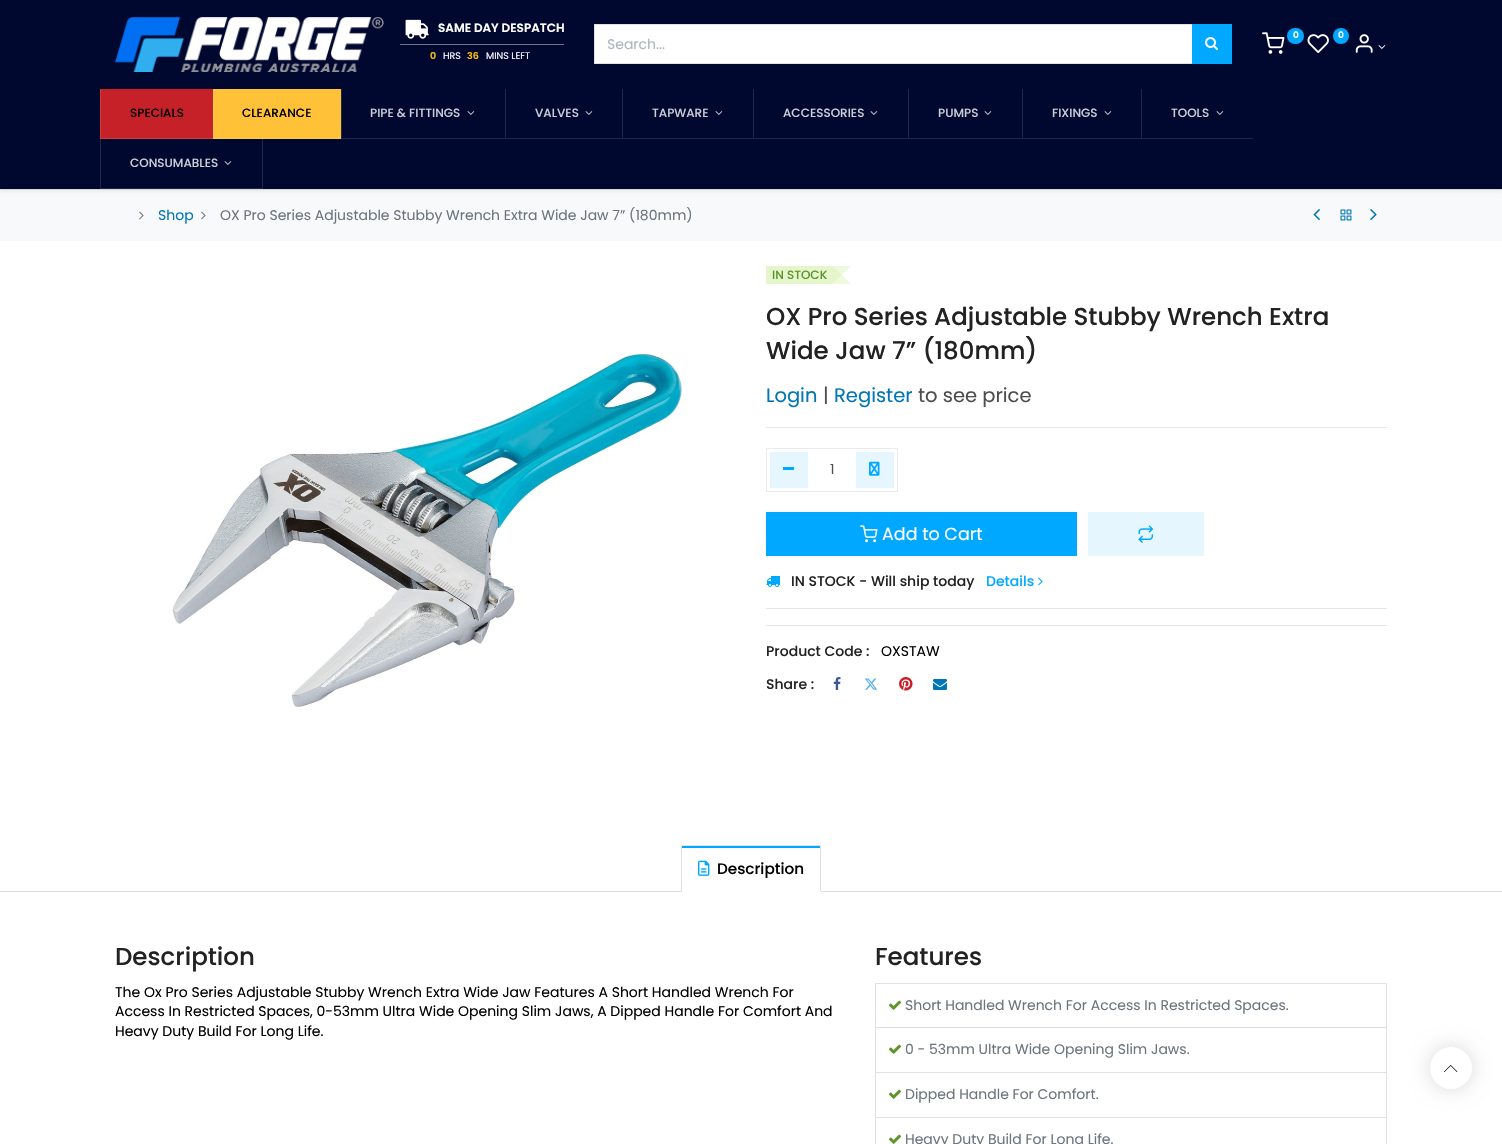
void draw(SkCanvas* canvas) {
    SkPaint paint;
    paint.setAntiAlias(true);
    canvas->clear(0xFFFFFFFF);
    paint.setColor(0xFF010830);
    canvas->drawRect(SkRect::MakeXYWH(0, 0, 1502, 88), paint);
    paint.setColor(0xFF01072A);
    canvas->drawRect(SkRect::MakeXYWH(0, 88, 1502, 1), paint);
    canvas->drawImageRect(SkImages::DeferredFromEncodedData(SkData::MakeFromFileName("img1.png")), SkRect::MakeXYWH(115, 17, 269, 55), SkSamplingOptions());
    canvas->drawImageRect(SkImages::DeferredFromEncodedData(SkData::MakeFromFileName("img2.png")), SkRect::MakeXYWH(405, 19, 24, 20), SkSamplingOptions());
    SkFont font1(fontMgr->matchFamilyStyle("Poppins", SkFontStyle(600, SkFontStyle::kNormal_Width, SkFontStyle::kUpright_Slant)), 12);
    font1.setSubpixel(true);
    paint.setColor(0xFFFFFFFF);
    canvas->drawString("SAME DAY DESPATCH", 438, 32, font1, paint);
    paint.setColor(0xFF6C757D);
    canvas->drawRect(SkRect::MakeXYWH(400, 44, 164, 1), paint);
    SkFont font2(fontMgr->matchFamilyStyle("Poppins", SkFontStyle(600, SkFontStyle::kNormal_Width, SkFontStyle::kUpright_Slant)), 9.5f);
    font2.setSubpixel(true);
    paint.setColor(0xFFFFC107);
    canvas->drawString("0", 430, 59, font2, paint);
    SkFont font3(fontMgr->matchFamilyStyle("Poppins", SkFontStyle::Normal()), 9.5f);
    font3.setSubpixel(true);
    paint.setColor(0xFFFFFFFF);
    canvas->drawString("HRS", 443, 59, font3, paint);
    paint.setColor(0xFFFFC107);
    canvas->drawString("36", 467, 59, font2, paint);
    paint.setColor(0xFFFFFFFF);
    canvas->drawString("MINS LEFT", 486, 59, font3, paint);
    canvas->drawImageRect(SkImages::DeferredFromEncodedData(SkData::MakeFromFileName("img3.png")), SkRect::MakeXYWH(1262, 32, 23, 22), SkSamplingOptions());
    paint.setColor(0xFF01A8FF);
    canvas->drawRoundRect(SkRect::MakeXYWH(1287, 28, 17, 16), 8, 8, paint);
    SkFont font4(fontMgr->matchFamilyStyle("Poppins", SkFontStyle(600, SkFontStyle::kNormal_Width, SkFontStyle::kUpright_Slant)), 9);
    font4.setSubpixel(true);
    paint.setColor(0xFFFFFFFF);
    canvas->drawString("0", 1293, 38, font4, paint);
    canvas->drawImageRect(SkImages::DeferredFromEncodedData(SkData::MakeFromFileName("img4.png")), SkRect::MakeXYWH(1307, 34, 22, 19), SkSamplingOptions());
    paint.setColor(0xFF01A8FF);
    canvas->drawCircle(1341, 36, 8, paint);
    paint.setColor(0xFFFFFFFF);
    canvas->drawString("0", 1338, 38, font4, paint);
    canvas->drawImageRect(SkImages::DeferredFromEncodedData(SkData::MakeFromFileName("img5.png")), SkRect::MakeXYWH(1355, 34, 18, 19), SkSamplingOptions());
    canvas->drawImageRect(SkImages::DeferredFromEncodedData(SkData::MakeFromFileName("img6.png")), SkRect::MakeXYWH(1378, 45, 8, 4), SkSamplingOptions());
    canvas->drawRect(SkRect::MakeXYWH(594.5f, 24.5f, 598, 39), paint);
    paint.setStyle(SkPaint::kStroke_Style);
    paint.setStrokeWidth(1);
    paint.setColor(0xFFDEE2E6);
    canvas->drawRect(SkRect::MakeXYWH(594.5f, 24.5f, 598, 39), paint);
    SkFont font5(fontMgr->matchFamilyStyle("Poppins", SkFontStyle::Normal()), 14);
    font5.setSubpixel(true);
    paint.setStyle(SkPaint::kFill_Style);
    paint.setColor(0xFFADB5BD);
    canvas->drawString("Search...", 607, 49, font5, paint);
    paint.setColor(0xFF01A8FF);
    canvas->drawRect(SkRect::MakeXYWH(1192, 24, 40, 40), paint);
    canvas->drawImageRect(SkImages::DeferredFromEncodedData(SkData::MakeFromFileName("img7.png")), SkRect::MakeXYWH(1205, 37, 13, 13), SkSamplingOptions());
    paint.setColor(0xFFF8F9FA);
    canvas->drawRect(SkRect::MakeXYWH(0, 190, 1502, 51), paint);
    paint.setColor(0xFFE5E5E5);
    canvas->drawRect(SkRect::MakeXYWH(0, 189, 1502, 1), paint);
    paint.setColor(0x12000000);
    paint.setMaskFilter(SkMaskFilter::MakeBlur(kNormal_SkBlurStyle, 2));
    canvas->drawRect(SkRect::MakeXYWH(0, 91, 1502, 100), paint);
    paint.setMaskFilter(nullptr);
    paint.setColor(0xFF010830);
    canvas->drawRect(SkRect::MakeXYWH(0, 89, 1502, 100), paint);
    paint.setColor(0xFFC62128);
    canvas->drawRect(SkRect::MakeXYWH(100, 89, 113, 50), paint);
    paint.setColor(0xFFCD3C42);
    canvas->drawPath(SkPathBuilder().moveTo(213, 139).lineTo(100, 139).lineTo(101, 138).lineTo(213, 138).close().detach(), paint);
    paint.setColor(0x1FFFFFFF);
    canvas->drawPath(SkPathBuilder().moveTo(100, 139).lineTo(100, 89).lineTo(101, 89).lineTo(101, 138).close().detach(), paint);
    SkFont font6(fontMgr->matchFamilyStyle("Poppins", SkFontStyle(500, SkFontStyle::kNormal_Width, SkFontStyle::kUpright_Slant)), 12);
    font6.setSubpixel(true);
    paint.setColor(0xFF000000);
    canvas->drawString("SPECIALS", 130, 117, font6, paint);
    paint.setColor(0xFFFFC138);
    canvas->drawRect(SkRect::MakeXYWH(213, 89, 128, 50), paint);
    paint.setColor(0xFFFFC850);
    canvas->drawPath(SkPathBuilder().moveTo(341, 139).lineTo(213, 139).lineTo(214, 138).lineTo(341, 138).close().detach(), paint);
    paint.setColor(0x1FFFFFFF);
    canvas->drawPath(SkPathBuilder().moveTo(213, 139).lineTo(213, 89).lineTo(214, 89).lineTo(214, 138).close().detach(), paint);
    paint.setColor(0xFF000000);
    canvas->drawString("CLEARANCE", 242, 117, font6, paint);
    paint.setColor(0xFF1F2649);
    canvas->drawPath(SkPathBuilder().moveTo(505, 139).lineTo(341, 139).lineTo(342, 138).lineTo(505, 138).close().detach(), paint);
    paint.setColor(0x1FFFFFFF);
    canvas->drawPath(SkPathBuilder().moveTo(341, 139).lineTo(341, 89).lineTo(342, 89).lineTo(342, 138).close().detach(), paint);
    paint.setColor(0xFFCCCED6);
    canvas->drawString("PIPE & FITTINGS", 370, 117, font6, paint);
    canvas->drawImageRect(SkImages::DeferredFromEncodedData(SkData::MakeFromFileName("img8.png")), SkRect::MakeXYWH(467, 111, 8, 4), SkSamplingOptions());
    paint.setColor(0xFF1F2649);
    canvas->drawPath(SkPathBuilder().moveTo(622, 139).lineTo(505, 139).lineTo(506, 138).lineTo(622, 138).close().detach(), paint);
    paint.setColor(0x1FFFFFFF);
    canvas->drawPath(SkPathBuilder().moveTo(505, 139).lineTo(505, 89).lineTo(506, 89).lineTo(506, 138).close().detach(), paint);
    paint.setColor(0xFFCCCED6);
    canvas->drawString("VALVES", 535, 117, font6, paint);
    canvas->drawImageRect(SkImages::DeferredFromEncodedData(SkData::MakeFromFileName("img8.png")), SkRect::MakeXYWH(585, 111, 8, 4), SkSamplingOptions());
    paint.setColor(0xFF1F2649);
    canvas->drawPath(SkPathBuilder().moveTo(753, 139).lineTo(622, 139).lineTo(623, 138).lineTo(753, 138).close().detach(), paint);
    paint.setColor(0x1FFFFFFF);
    canvas->drawPath(SkPathBuilder().moveTo(622, 139).lineTo(622, 89).lineTo(623, 89).lineTo(623, 138).close().detach(), paint);
    paint.setColor(0xFFCCCED6);
    canvas->drawString("TAPWARE", 652, 117, font6, paint);
    canvas->drawImageRect(SkImages::DeferredFromEncodedData(SkData::MakeFromFileName("img8.png")), SkRect::MakeXYWH(715, 111, 8, 4), SkSamplingOptions());
    paint.setColor(0xFF1F2649);
    canvas->drawPath(SkPathBuilder().moveTo(908, 139).lineTo(753, 139).lineTo(754, 138).lineTo(908, 138).close().detach(), paint);
    paint.setColor(0x1FFFFFFF);
    canvas->drawPath(SkPathBuilder().moveTo(753, 139).lineTo(753, 89).lineTo(754, 89).lineTo(754, 138).close().detach(), paint);
    paint.setColor(0xFFCCCED6);
    canvas->drawString("ACCESSORIES", 783, 117, font6, paint);
    canvas->drawImageRect(SkImages::DeferredFromEncodedData(SkData::MakeFromFileName("img8.png")), SkRect::MakeXYWH(870, 111, 8, 4), SkSamplingOptions());
    paint.setColor(0xFF1F2649);
    canvas->drawPath(SkPathBuilder().moveTo(1022, 139).lineTo(908, 139).lineTo(909, 138).lineTo(1022, 138).close().detach(), paint);
    paint.setColor(0x1FFFFFFF);
    canvas->drawPath(SkPathBuilder().moveTo(908, 139).lineTo(908, 89).lineTo(909, 89).lineTo(909, 138).close().detach(), paint);
    paint.setColor(0xFFCCCED6);
    canvas->drawString("PUMPS", 938, 117, font6, paint);
    canvas->drawImageRect(SkImages::DeferredFromEncodedData(SkData::MakeFromFileName("img8.png")), SkRect::MakeXYWH(984, 111, 8, 4), SkSamplingOptions());
    paint.setColor(0xFF1F2649);
    canvas->drawPath(SkPathBuilder().moveTo(1141, 139).lineTo(1022, 139).lineTo(1023, 138).lineTo(1141, 138).close().detach(), paint);
    paint.setColor(0x1FFFFFFF);
    canvas->drawPath(SkPathBuilder().moveTo(1022, 139).lineTo(1022, 89).lineTo(1023, 89).lineTo(1023, 138).close().detach(), paint);
    paint.setColor(0xFFCCCED6);
    canvas->drawString("FIXINGS", 1052, 117, font6, paint);
    canvas->drawImageRect(SkImages::DeferredFromEncodedData(SkData::MakeFromFileName("img8.png")), SkRect::MakeXYWH(1104, 111, 8, 4), SkSamplingOptions());
    paint.setColor(0xFF1F2649);
    canvas->drawPath(SkPathBuilder().moveTo(1253, 139).lineTo(1141, 139).lineTo(1142, 138).lineTo(1253, 138).close().detach(), paint);
    paint.setColor(0x1FFFFFFF);
    canvas->drawPath(SkPathBuilder().moveTo(1141, 139).lineTo(1141, 89).lineTo(1142, 89).lineTo(1142, 138).close().detach(), paint);
    paint.setColor(0xFFCCCED6);
    canvas->drawString("TOOLS", 1171, 117, font6, paint);
    canvas->drawImageRect(SkImages::DeferredFromEncodedData(SkData::MakeFromFileName("img8.png")), SkRect::MakeXYWH(1216, 111, 8, 4), SkSamplingOptions());
    paint.setColor(0xFF1F2649);
    canvas->drawPath(SkPathBuilder().moveTo(263, 139).lineTo(263, 189).lineTo(262, 188).lineTo(262, 139).close().detach(), paint);
    paint.setColor(0x1FFFFFFF);
    canvas->drawPath(SkPathBuilder().moveTo(263, 189).lineTo(100, 189).lineTo(101, 188).lineTo(262, 188).close().detach(), paint);
    canvas->drawPath(SkPathBuilder().moveTo(100, 189).lineTo(100, 139).lineTo(101, 139).lineTo(101, 188).close().detach(), paint);
    paint.setColor(0xFFCCCED6);
    canvas->drawString("CONSUMABLES", 130, 167, font6, paint);
    canvas->drawImageRect(SkImages::DeferredFromEncodedData(SkData::MakeFromFileName("img8.png")), SkRect::MakeXYWH(224, 161, 8, 4), SkSamplingOptions());
    canvas->drawImageRect(SkImages::DeferredFromEncodedData(SkData::MakeFromFileName("img9.png")), SkRect::MakeXYWH(139, 211, 5, 9), SkSamplingOptions());
    paint.setColor(0xFF0076B4);
    canvas->drawString("Shop", 158, 220, font5, paint);
    canvas->drawImageRect(SkImages::DeferredFromEncodedData(SkData::MakeFromFileName("img9.png")), SkRect::MakeXYWH(201, 211, 5, 9), SkSamplingOptions());
    paint.setColor(0xFF6C757D);
    canvas->drawString("OX Pro Series Adjustable Stubby Wrench Extra Wide Jaw 7” (180mm)", 220, 220, font5, paint);
    canvas->drawImageRect(SkImages::DeferredFromEncodedData(SkData::MakeFromFileName("img10.png")), SkRect::MakeXYWH(1313, 209, 7, 12), SkSamplingOptions());
    canvas->drawImageRect(SkImages::DeferredFromEncodedData(SkData::MakeFromFileName("img11.png")), SkRect::MakeXYWH(1340, 209, 12, 12), SkSamplingOptions());
    canvas->drawImageRect(SkImages::DeferredFromEncodedData(SkData::MakeFromFileName("img12.png")), SkRect::MakeXYWH(1370, 209, 7, 12), SkSamplingOptions());
    canvas->drawImageRect(SkImages::DeferredFromEncodedData(SkData::MakeFromFileName("img13.png")), SkRect::MakeXYWH(172, 352, 511, 355), SkSamplingOptions());
    paint.setColor(0xFFE5F5CC);
    canvas->drawRect(SkRect::MakeXYWH(766, 266, 67, 18), paint);
    paint.setColor(0xFF5F942B);
    canvas->drawString("IN STOCK", 772, 279, font6, paint);
    paint.setColor(0xFFEFF9DF);
    canvas->drawPath(SkPathBuilder().moveTo(833, 266).lineTo(851, 266).lineTo(842, 275).close().moveTo(851, 284).lineTo(833, 284).lineTo(842, 275).close().detach(), paint);
    paint.setColor(0xCCDFF2BF);
    canvas->drawPath(SkPathBuilder().moveTo(833, 284).lineTo(833, 266).lineTo(842, 275).close().detach(), paint);
    SkFont font7(fontMgr->matchFamilyStyle("Poppins", SkFontStyle(500, SkFontStyle::kNormal_Width, SkFontStyle::kUpright_Slant)), 24.5f);
    font7.setSubpixel(true);
    paint.setColor(0xFF222222);
    canvas->drawString("OX Pro Series Adjustable Stubby Wrench Extra", 766, 325, font7, paint);
    canvas->drawString("Wide Jaw 7” (180mm)", 766, 359, font7, paint);
    SkFont font8(fontMgr->matchFamilyStyle("Poppins", SkFontStyle::Normal()), 19.5f);
    font8.setSubpixel(true);
    paint.setColor(0xFF0076B4);
    canvas->drawString("Login", 766, 402, font8, paint);
    paint.setColor(0xFF4D4D4D);
    canvas->drawString("|", 823, 402, font8, paint);
    paint.setColor(0xFF0076B4);
    canvas->drawString("Register", 834, 402, font8, paint);
    paint.setColor(0xFF4D4D4D);
    canvas->drawString("to see price", 918, 402, font8, paint);
    paint.setColor(0xFFE6E6E6);
    canvas->drawRect(SkRect::MakeXYWH(766, 427, 621, 1), paint);
    paint.setStyle(SkPaint::kStroke_Style);
    paint.setColor(0xFFE9ECEF);
    canvas->drawRect(SkRect::MakeXYWH(766.5f, 448.5f, 131, 43), paint);
    paint.setStyle(SkPaint::kFill_Style);
    paint.setColor(0xFFE6F6FF);
    canvas->drawRect(SkRect::MakeXYWH(770, 452, 38, 36), paint);
    paint.setColor(0xFF01A8FF);
    canvas->drawRect(SkRect::MakeXYWH(783, 467, 11, 3), paint);
    paint.setColor(0xFF495057);
    canvas->drawString("1", 830, 474, font5, paint);
    paint.setColor(0xFFE6F6FF);
    canvas->drawRect(SkRect::MakeXYWH(856, 452, 38, 36), paint);
    canvas->drawImageRect(SkImages::DeferredFromEncodedData(SkData::MakeFromFileName("img14.png")), SkRect::MakeXYWH(869, 461, 11, 15), SkSamplingOptions());
    paint.setColor(0xFF01A8FF);
    canvas->drawRect(SkRect::MakeXYWH(766, 512, 311, 44), paint);
    canvas->drawImageRect(SkImages::DeferredFromEncodedData(SkData::MakeFromFileName("img15.png")), SkRect::MakeXYWH(860, 525, 18, 18), SkSamplingOptions());
    SkFont font9(fontMgr->matchFamilyStyle("Poppins", SkFontStyle::Normal()), 17.5f);
    font9.setSubpixel(true);
    paint.setColor(0xFFFFFFFF);
    canvas->drawString("Add to Cart", 882, 540, font9, paint);
    paint.setColor(0xFFE6F6FF);
    canvas->drawRect(SkRect::MakeXYWH(1088, 512, 116, 44), paint);
    canvas->drawImageRect(SkImages::DeferredFromEncodedData(SkData::MakeFromFileName("img16.png")), SkRect::MakeXYWH(1138, 525, 16, 18), SkSamplingOptions());
    canvas->drawImageRect(SkImages::DeferredFromEncodedData(SkData::MakeFromFileName("img17.png")), SkRect::MakeXYWH(766, 576, 14, 11), SkSamplingOptions());
    SkFont font10(fontMgr->matchFamilyStyle("Poppins", SkFontStyle(500, SkFontStyle::kNormal_Width, SkFontStyle::kUpright_Slant)), 14);
    font10.setSubpixel(true);
    paint.setColor(0xFF222222);
    canvas->drawString("IN STOCK - Will ship today", 791, 586, font10, paint);
    paint.setColor(0xFF01A8FF);
    canvas->drawString("Details", 986, 586, font10, paint);
    canvas->drawImageRect(SkImages::DeferredFromEncodedData(SkData::MakeFromFileName("img18.png")), SkRect::MakeXYWH(1038, 577, 5, 9), SkSamplingOptions());
    paint.setColor(0xFFE6E6E6);
    canvas->drawRect(SkRect::MakeXYWH(766, 608, 621, 1), paint);
    canvas->drawRect(SkRect::MakeXYWH(766, 625, 621, 1), paint);
    paint.setColor(0xFF222222);
    canvas->drawString("Product Code :", 766, 656, font10, paint);
    paint.setColor(0xFF000000);
    canvas->drawString("OXSTAW", 881, 656, font5, paint);
    paint.setColor(0xFF222222);
    canvas->drawString("Share :", 766, 689, font10, paint);
    canvas->drawImageRect(SkImages::DeferredFromEncodedData(SkData::MakeFromFileName("img19.png")), SkRect::MakeXYWH(833, 677, 8, 13), SkSamplingOptions());
    canvas->drawImageRect(SkImages::DeferredFromEncodedData(SkData::MakeFromFileName("img20.png")), SkRect::MakeXYWH(864, 678, 14, 12), SkSamplingOptions());
    canvas->drawImageRect(SkImages::DeferredFromEncodedData(SkData::MakeFromFileName("img21.png")), SkRect::MakeXYWH(899, 677, 14, 14), SkSamplingOptions());
    canvas->drawImageRect(SkImages::DeferredFromEncodedData(SkData::MakeFromFileName("img22.png")), SkRect::MakeXYWH(933, 679, 14, 11), SkSamplingOptions());
    paint.setColor(0xFFDEE2E6);
    canvas->drawRect(SkRect::MakeXYWH(0, 891, 1502, 1), paint);
    paint.setColor(0xFF01A8FF);
    canvas->drawRect(SkRect::MakeXYWH(682, 846, 138, 2), paint);
    paint.setColor(0xFFDEE2E6);
    canvas->drawRect(SkRect::MakeXYWH(681, 845, 140, 1), paint);
    canvas->drawRect(SkRect::MakeXYWH(820, 845, 1, 47), paint);
    paint.setColor(0xFFFFFFFF);
    canvas->drawRect(SkRect::MakeXYWH(681, 891, 140, 1), paint);
    paint.setColor(0xFFDEE2E6);
    canvas->drawRect(SkRect::MakeXYWH(681, 845, 1, 47), paint);
    canvas->drawImageRect(SkImages::DeferredFromEncodedData(SkData::MakeFromFileName("img23.png")), SkRect::MakeXYWH(698, 860, 12, 16), SkSamplingOptions());
    SkFont font11(fontMgr->matchFamilyStyle("Poppins", SkFontStyle(500, SkFontStyle::kNormal_Width, SkFontStyle::kUpright_Slant)), 15.25f);
    font11.setSubpixel(true);
    paint.setColor(0xFF000000);
    canvas->drawString("Description", 717, 874, font11, paint);
    paint.setColor(0xFF222222);
    canvas->drawString("Description", 115, 965, font7, paint);
    paint.setColor(0xFF000000);
    canvas->drawString("The Ox Pro Series Adjustable Stubby Wrench Extra Wide Jaw Features A Short Handled Wrench For", 115, 997, font5, paint);
    canvas->drawString("Access In Restricted Spaces, 0-53mm Ultra Wide Opening Slim Jaws, A Dipped Handle For Comfort And", 115, 1016, font5, paint);
    canvas->drawString("Heavy Duty Build For Long Life.", 115, 1036, font5, paint);
    paint.setColor(0xFF222222);
    canvas->drawString("Features", 875, 965, font7, paint);
    paint.setColor(0xFFDEE2E6);
    canvas->drawRect(SkRect::MakeXYWH(875, 983, 512, 1), paint);
    canvas->drawRect(SkRect::MakeXYWH(1386, 983, 1, 161), paint);
    canvas->drawRect(SkRect::MakeXYWH(875, 983, 1, 161), paint);
    canvas->drawImageRect(SkImages::DeferredFromEncodedData(SkData::MakeFromFileName("img24.png")), SkRect::MakeXYWH(889, 1000, 12, 10), SkSamplingOptions());
    paint.setColor(0xFF6C757D);
    canvas->drawString("Short Handled Wrench For Access In Restricted Spaces.", 905, 1010, font5, paint);
    paint.setColor(0xFFDEE2E6);
    canvas->drawRect(SkRect::MakeXYWH(875, 1027, 512, 1), paint);
    canvas->drawImageRect(SkImages::DeferredFromEncodedData(SkData::MakeFromFileName("img24.png")), SkRect::MakeXYWH(889, 1044, 12, 10), SkSamplingOptions());
    paint.setColor(0xFF6C757D);
    canvas->drawString("0 - 53mm Ultra Wide Opening Slim Jaws.", 905, 1054, font5, paint);
    paint.setColor(0xFFDEE2E6);
    canvas->drawRect(SkRect::MakeXYWH(875, 1072, 512, 1), paint);
    canvas->drawImageRect(SkImages::DeferredFromEncodedData(SkData::MakeFromFileName("img24.png")), SkRect::MakeXYWH(889, 1089, 12, 10), SkSamplingOptions());
    paint.setColor(0xFF6C757D);
    canvas->drawString("Dipped Handle For Comfort.", 905, 1099, font5, paint);
    paint.setColor(0xFFDEE2E6);
    canvas->drawRect(SkRect::MakeXYWH(875, 1117, 512, 1), paint);
    canvas->drawImageRect(SkImages::DeferredFromEncodedData(SkData::MakeFromFileName("img24.png")), SkRect::MakeXYWH(889, 1134, 12, 10), SkSamplingOptions());
    paint.setColor(0xFF6C757D);
    canvas->drawString("Heavy Duty Build For Long Life.", 905, 1144, font5, paint);
    paint.setColor(0x26000000);
    paint.setMaskFilter(SkMaskFilter::MakeBlur(kNormal_SkBlurStyle, 10));
    canvas->drawRoundRect(SkRect::MakeXYWH(1430, 1047, 42, 42), 21, 21, paint);
    paint.setMaskFilter(nullptr);
    paint.setColor(0xFFFFFFFF);
    canvas->drawCircle(1451, 1068, 21, paint);
    canvas->drawImageRect(SkImages::DeferredFromEncodedData(SkData::MakeFromFileName("img25.png")), SkRect::MakeXYWH(1444, 1065, 14, 7), SkSamplingOptions());
}
